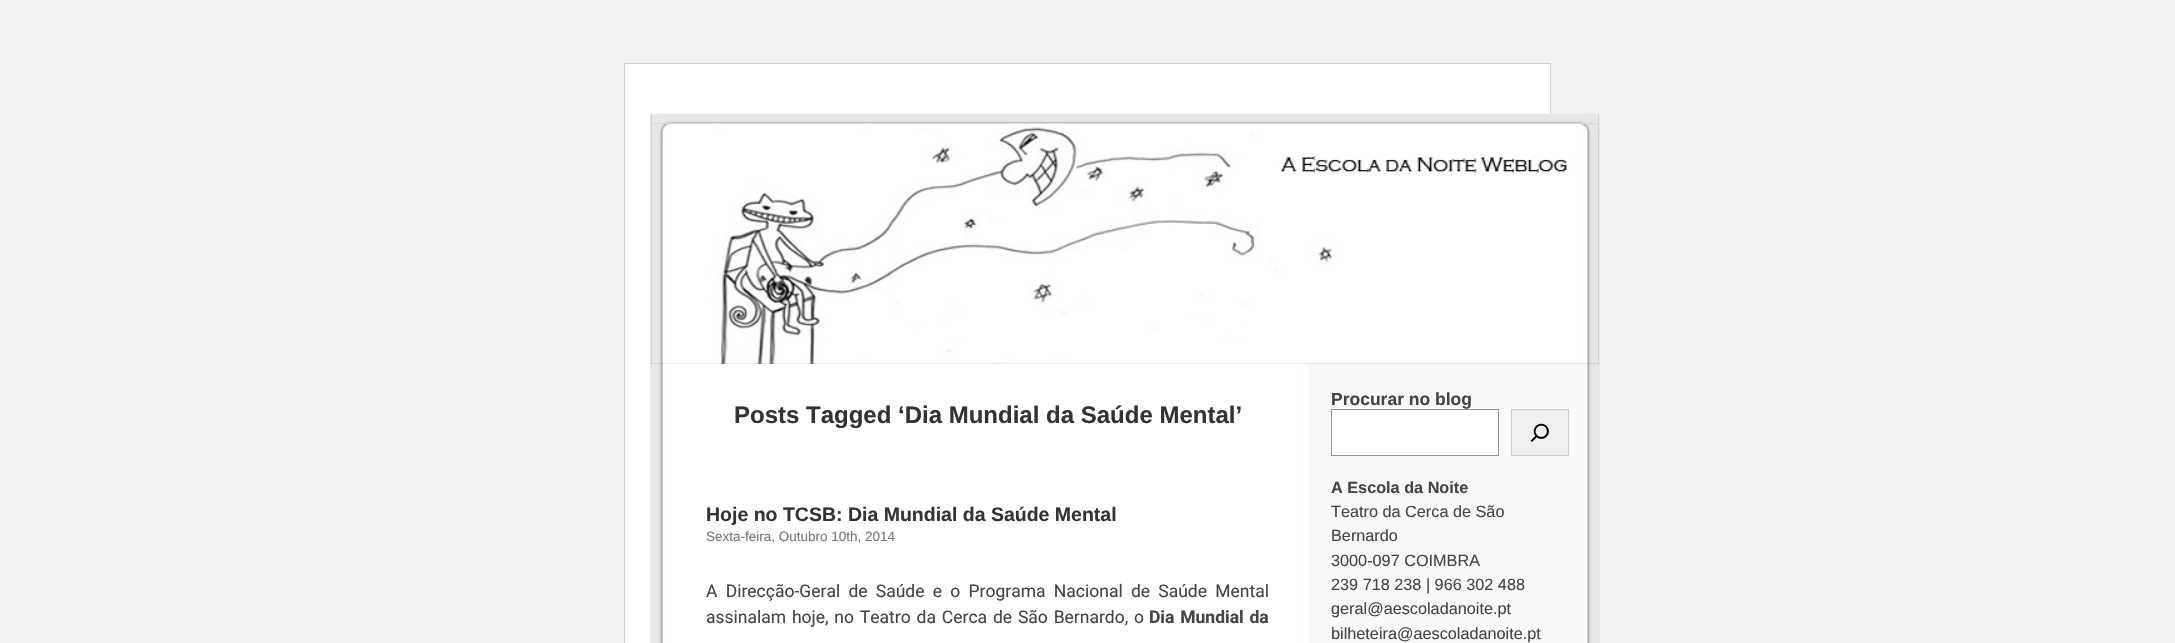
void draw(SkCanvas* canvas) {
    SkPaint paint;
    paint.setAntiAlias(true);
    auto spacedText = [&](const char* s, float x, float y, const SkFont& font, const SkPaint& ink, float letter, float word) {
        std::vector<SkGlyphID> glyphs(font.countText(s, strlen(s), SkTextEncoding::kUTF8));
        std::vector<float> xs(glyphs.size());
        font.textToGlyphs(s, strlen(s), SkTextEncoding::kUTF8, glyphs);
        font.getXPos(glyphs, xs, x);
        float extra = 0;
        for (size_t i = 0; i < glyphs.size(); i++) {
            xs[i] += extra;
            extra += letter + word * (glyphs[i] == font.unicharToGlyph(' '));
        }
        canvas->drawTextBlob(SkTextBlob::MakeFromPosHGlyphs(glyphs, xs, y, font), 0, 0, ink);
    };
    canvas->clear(0xFFF1F1F1);
    paint.setColor(0xFFFFFFFF);
    canvas->drawRect(SkRect::MakeXYWH(624.5f, 63.5f, 926, 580), paint);
    paint.setStyle(SkPaint::kStroke_Style);
    paint.setStrokeWidth(1);
    paint.setColor(0xFFCCD0D4);
    canvas->drawRect(SkRect::MakeXYWH(624.5f, 63.5f, 926, 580), paint);
    canvas->drawImageRect(SkImages::DeferredFromEncodedData(SkData::MakeFromFileName("img1.png")), SkRect::MakeXYWH(650, 113, 950, 530), SkSamplingOptions());
    paint.setStyle(SkPaint::kFill_Style);
    paint.setColor(0xFF73A0C5);
    canvas->drawRect(SkRect::MakeXYWH(651, 114, 948, 250), paint);
    canvas->drawImageRect(SkImages::DeferredFromEncodedData(SkData::MakeFromFileName("img2.png")), SkRect::MakeXYWH(651, 113, 948, 251), SkSamplingOptions());
    paint.setColor(0xFFDADADA);
    canvas->drawRect(SkRect::MakeXYWH(651, 123, 948, 1), paint);
    SkFont font1(fontMgr->matchFamilyStyle("Liberation Sans", SkFontStyle::Bold()), 24);
    font1.setSubpixel(true);
    paint.setColor(0xFF333333);
    canvas->drawString("Posts Tagged ‘Dia Mundial da Saúde Mental’", 734, 423, font1, paint);
    SkFont font2(fontMgr->matchFamilyStyle("Liberation Sans", SkFontStyle::Bold()), 19.5f);
    font2.setSubpixel(true);
    canvas->drawString("Hoje no TCSB: Dia Mundial da Saúde Mental", 706, 521, font2, paint);
    SkFont font3(fontMgr->matchFamilyStyle("Liberation Sans", SkFontStyle::Normal()), 13.5f);
    font3.setSubpixel(true);
    paint.setColor(0xFF777777);
    canvas->drawString("Sexta-feira, Outubro 10th, 2014", 706, 541, font3, paint);
    SkFont font4(fontMgr->matchFamilyStyle("Roboto", SkFontStyle::Normal()), 17.5f);
    font4.setSubpixel(true);
    paint.setColor(0xFF444444);
    spacedText("A Direcção-Geral de Saúde e o Programa Nacional de Saúde Mental", 706, 597, font4, paint, 0, 3.9f);
    spacedText("assinalam hoje, no Teatro da Cerca de São Bernardo, o", 706, 623, font4, paint, 0, 1.5f);
    SkFont font5(fontMgr->matchFamilyStyle("Roboto", SkFontStyle::Bold()), 17.5f);
    font5.setSubpixel(true);
    spacedText("Dia Mundial da", 1149, 623, font5, paint, 0, 1.5f);
    SkFont font6(fontMgr->matchFamilyStyle("Liberation Sans", SkFontStyle::Bold()), 17.5f);
    font6.setSubpixel(true);
    canvas->drawString("Procurar no blog", 1331, 405, font6, paint);
    paint.setColor(0xFFFFFFFF);
    canvas->drawRect(SkRect::MakeXYWH(1331.5f, 409.5f, 167, 46), paint);
    paint.setStyle(SkPaint::kStroke_Style);
    paint.setColor(0xFF949494);
    canvas->drawRect(SkRect::MakeXYWH(1331.5f, 409.5f, 167, 46), paint);
    paint.setStyle(SkPaint::kFill_Style);
    paint.setColor(0xFFEFEFEF);
    canvas->drawRect(SkRect::MakeXYWH(1511.5f, 409.5f, 57, 46), paint);
    paint.setStyle(SkPaint::kStroke_Style);
    paint.setColor(0xFFCCCCCC);
    canvas->drawRect(SkRect::MakeXYWH(1511.5f, 409.5f, 57, 46), paint);
    canvas->drawImageRect(SkImages::DeferredFromEncodedData(SkData::MakeFromFileName("img3.png")), SkRect::MakeXYWH(1530, 423, 19, 19), SkSamplingOptions());
    SkFont font7(fontMgr->matchFamilyStyle("Liberation Sans", SkFontStyle::Bold()), 16.25f);
    font7.setSubpixel(true);
    paint.setStyle(SkPaint::kFill_Style);
    paint.setColor(0xFF444444);
    canvas->drawString("A Escola da Noite", 1331, 493, font7, paint);
    SkFont font8(fontMgr->matchFamilyStyle("Liberation Sans", SkFontStyle::Normal()), 16.25f);
    font8.setSubpixel(true);
    canvas->drawString("Teatro da Cerca de São", 1331, 517, font8, paint);
    canvas->drawString("Bernardo", 1331, 541, font8, paint);
    canvas->drawString("3000-097 COIMBRA", 1331, 566, font8, paint);
    canvas->drawString("239 718 238 | 966 302 488", 1331, 590, font8, paint);
    canvas->drawString("geral@aescoladanoite.pt", 1331, 614, font8, paint);
    canvas->drawString("bilheteira@aescoladanoite.pt", 1331, 639, font8, paint);
}
